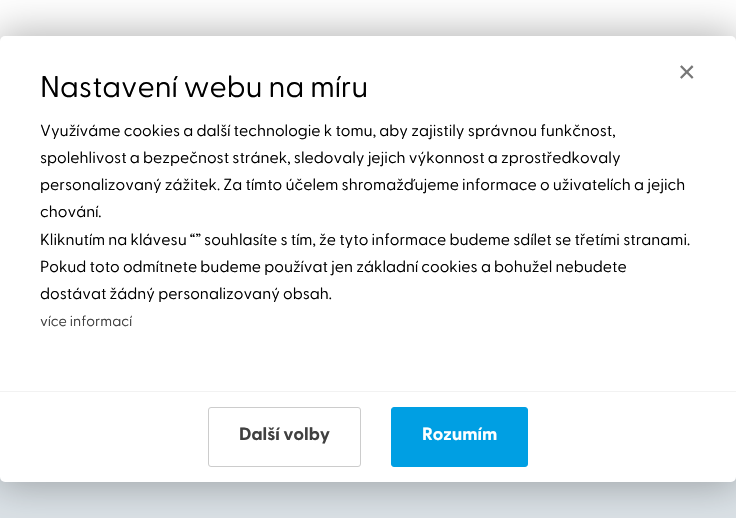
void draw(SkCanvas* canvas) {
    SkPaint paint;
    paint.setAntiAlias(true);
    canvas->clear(0xFFDBE2E7);
    paint.setColor(0xFFFFFFFF);
    canvas->drawRect(SkRect::MakeXYWH(0, 0, 736, 41), paint);
    paint.setColor(0x4D000000);
    paint.setMaskFilter(SkMaskFilter::MakeBlur(kNormal_SkBlurStyle, 20));
    canvas->drawRoundRect(SkRect::MakeXYWH(-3, 33, 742, 452), 8, 8, paint);
    paint.setMaskFilter(nullptr);
    paint.setColor(0xFFFFFFFF);
    canvas->drawRoundRect(SkRect::MakeXYWH(0, 36, 736, 446), 5, 5, paint);
    SkFont font1(fontMgr->matchFamilyStyle("Liberation Sans", SkFontStyle::Normal()), 30);
    font1.setSubpixel(true);
    paint.setColor(0xFF777777);
    canvas->drawString("×", 678, 82, font1, paint);
    SkFont font2(fontMgr->matchFamilyStyle("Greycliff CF", SkFontStyle::Normal()), 30);
    font2.setSubpixel(true);
    paint.setColor(0xFF000000);
    canvas->drawString("Nastavení webu na míru", 40, 97, font2, paint);
    SkFont font3(fontMgr->matchFamilyStyle("Greycliff CF", SkFontStyle::Normal()), 16);
    font3.setSubpixel(true);
    canvas->drawString("Využíváme cookies a další technologie k tomu, aby zajistily správnou funkčnost,", 40, 136, font3, paint);
    canvas->drawString("spolehlivost a bezpečnost stránek, sledovaly jejich výkonnost a zprostředkovaly", 40, 163, font3, paint);
    canvas->drawString("personalizovaný zážitek. Za tímto účelem shromažďujeme informace o uživatelích a jejich", 40, 190, font3, paint);
    canvas->drawString("chování.", 40, 217, font3, paint);
    canvas->drawString("Kliknutím na klávesu “” souhlasíte s tím, že tyto informace budeme sdílet se třetími stranami.", 40, 245, font3, paint);
    canvas->drawString("Pokud toto odmítnete budeme používat jen základní cookies a bohužel nebudete", 40, 272, font3, paint);
    canvas->drawString("dostávat žádný personalizovaný obsah.", 40, 299, font3, paint);
    SkFont font4(fontMgr->matchFamilyStyle("Greycliff CF", SkFontStyle::Normal()), 14.5f);
    font4.setSubpixel(true);
    paint.setColor(0xFF404040);
    canvas->drawString("více informací", 40, 326, font4, paint);
    paint.setColor(0xFFF2F2F2);
    canvas->drawRect(SkRect::MakeXYWH(0, 391, 736, 1), paint);
    paint.setStyle(SkPaint::kStroke_Style);
    paint.setStrokeWidth(1);
    paint.setColor(0xFFCCCCCC);
    canvas->drawRoundRect(SkRect::MakeXYWH(208.5f, 407.5f, 152, 59), 2.5f, 2.5f, paint);
    SkFont font5(fontMgr->matchFamilyStyle("Greycliff CF", SkFontStyle::Bold()), 18);
    font5.setSubpixel(true);
    paint.setStyle(SkPaint::kFill_Style);
    paint.setColor(0xFF404040);
    canvas->drawString("Další volby", 239, 440, font5, paint);
    paint.setColor(0xFF009FE3);
    canvas->drawRoundRect(SkRect::MakeXYWH(391.5f, 407.5f, 136, 59), 2.5f, 2.5f, paint);
    paint.setStyle(SkPaint::kStroke_Style);
    canvas->drawRoundRect(SkRect::MakeXYWH(391.5f, 407.5f, 136, 59), 2.5f, 2.5f, paint);
    paint.setStyle(SkPaint::kFill_Style);
    paint.setColor(0xFFFFFFFF);
    canvas->drawString("Rozumím", 422, 440, font5, paint);
}
